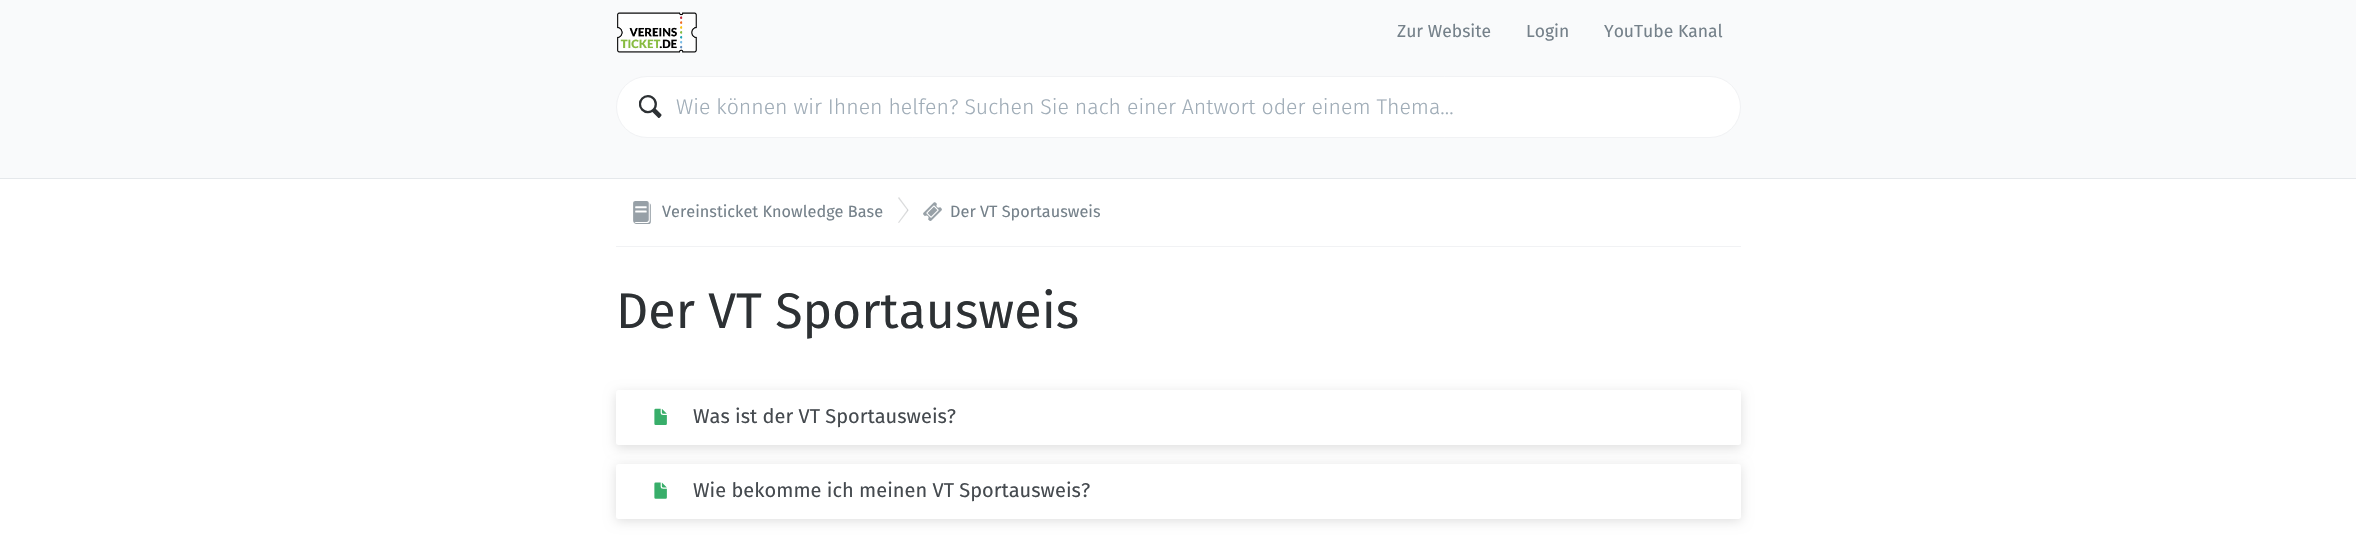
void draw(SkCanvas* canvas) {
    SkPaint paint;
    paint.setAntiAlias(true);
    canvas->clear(0xFFFFFFFF);
    paint.setColor(0xFFF9FAFB);
    canvas->drawRect(SkRect::MakeXYWH(0, 0, 2356, 178), paint);
    paint.setColor(0xFFE5E8EB);
    canvas->drawRect(SkRect::MakeXYWH(0, 178, 2356, 1), paint);
    canvas->drawImageRect(SkImages::DeferredFromEncodedData(SkData::MakeFromFileName("img1.png")), SkRect::MakeXYWH(617, 12, 80, 41), SkSamplingOptions());
    SkFont font1(fontMgr->matchFamilyStyle("Fira Sans", SkFontStyle::Normal()), 17.5f);
    font1.setSubpixel(true);
    paint.setColor(0xFF75818A);
    canvas->drawString("Zur Website", 1397, 37, font1, paint);
    canvas->drawString("Login", 1526, 37, font1, paint);
    canvas->drawString("YouTube Kanal", 1604, 37, font1, paint);
    paint.setColor(0xFFFFFFFF);
    canvas->drawRoundRect(SkRect::MakeXYWH(616.5f, 76.5f, 1124, 61), 30.5f, 30.5f, paint);
    paint.setStyle(SkPaint::kStroke_Style);
    paint.setStrokeWidth(1);
    paint.setColor(0xFFF1F2F4);
    canvas->drawRoundRect(SkRect::MakeXYWH(616.5f, 76.5f, 1124, 61), 30.5f, 30.5f, paint);
    canvas->drawImageRect(SkImages::DeferredFromEncodedData(SkData::MakeFromFileName("img2.png")), SkRect::MakeXYWH(639, 95, 23, 23), SkSamplingOptions());
    SkFont font2(fontMgr->matchFamilyStyle("Fira Sans", SkFontStyle(300, SkFontStyle::kNormal_Width, SkFontStyle::kUpright_Slant)), 21.25f);
    font2.setSubpixel(true);
    paint.setStyle(SkPaint::kFill_Style);
    paint.setColor(0xFF9FACB7);
    canvas->drawString("Wie können wir Ihnen helfen? Suchen Sie nach einer Antwort oder einem Thema…", 676, 114, font2, paint);
    paint.setColor(0xFFF1F2F4);
    canvas->drawRect(SkRect::MakeXYWH(616, 246, 1125, 1), paint);
    canvas->drawImageRect(SkImages::DeferredFromEncodedData(SkData::MakeFromFileName("img3.png")), SkRect::MakeXYWH(633, 201, 18, 23), SkSamplingOptions());
    SkFont font3(fontMgr->matchFamilyStyle("Fira Sans", SkFontStyle::Normal()), 16.25f);
    font3.setSubpixel(true);
    paint.setColor(0xFF75818A);
    canvas->drawString("Vereinsticket Knowledge Base", 662, 217, font3, paint);
    paint.setColor(0xFFDADBDC);
    canvas->drawPath(SkPathBuilder().moveTo(898, 198).lineTo(899, 197).lineTo(908.5f, 210).lineTo(907.5f, 210.5f).close().detach(), paint);
    paint.setColor(0x33454A4F);
    canvas->drawPath(SkPathBuilder().moveTo(907.5f, 209.5f).lineTo(908.5f, 210.5f).lineTo(899, 223).lineTo(898, 222.5f).close().detach(), paint);
    canvas->drawImageRect(SkImages::DeferredFromEncodedData(SkData::MakeFromFileName("img4.png")), SkRect::MakeXYWH(923, 202, 19, 19), SkSamplingOptions());
    paint.setColor(0xFF75818A);
    canvas->drawString("Der VT Sportausweis", 950, 217, font3, paint);
    SkFont font4(fontMgr->matchFamilyStyle("Fira Sans", SkFontStyle::Normal()), 50);
    font4.setSubpixel(true);
    paint.setColor(0xFF2D3134);
    canvas->drawString("Der VT Sportausweis", 616, 328, font4, paint);
    paint.setColor(0x21000000);
    paint.setMaskFilter(SkMaskFilter::MakeBlur(kNormal_SkBlurStyle, 6));
    canvas->drawRoundRect(SkRect::MakeXYWH(616, 393, 1125, 55), 2.5f, 2.5f, paint);
    paint.setMaskFilter(nullptr);
    paint.setColor(0xFFFFFFFF);
    canvas->drawRoundRect(SkRect::MakeXYWH(616, 390, 1125, 55), 2.5f, 2.5f, paint);
    canvas->drawImageRect(SkImages::DeferredFromEncodedData(SkData::MakeFromFileName("img5.png")), SkRect::MakeXYWH(654, 408, 13, 17), SkSamplingOptions());
    SkFont font5(fontMgr->matchFamilyStyle("Fira Sans", SkFontStyle::Normal()), 20);
    font5.setSubpixel(true);
    paint.setColor(0xFF454A4F);
    canvas->drawString("Was ist der VT Sportausweis?", 693, 423, font5, paint);
    paint.setColor(0x21000000);
    paint.setMaskFilter(SkMaskFilter::MakeBlur(kNormal_SkBlurStyle, 6));
    canvas->drawRoundRect(SkRect::MakeXYWH(616, 466, 1125, 55), 2.5f, 2.5f, paint);
    paint.setMaskFilter(nullptr);
    paint.setColor(0xFFFFFFFF);
    canvas->drawRoundRect(SkRect::MakeXYWH(616, 464, 1125, 55), 2.5f, 2.5f, paint);
    canvas->drawImageRect(SkImages::DeferredFromEncodedData(SkData::MakeFromFileName("img6.png")), SkRect::MakeXYWH(654, 482, 13, 17), SkSamplingOptions());
    paint.setColor(0xFF454A4F);
    canvas->drawString("Wie bekomme ich meinen VT Sportausweis?", 693, 497, font5, paint);
}
